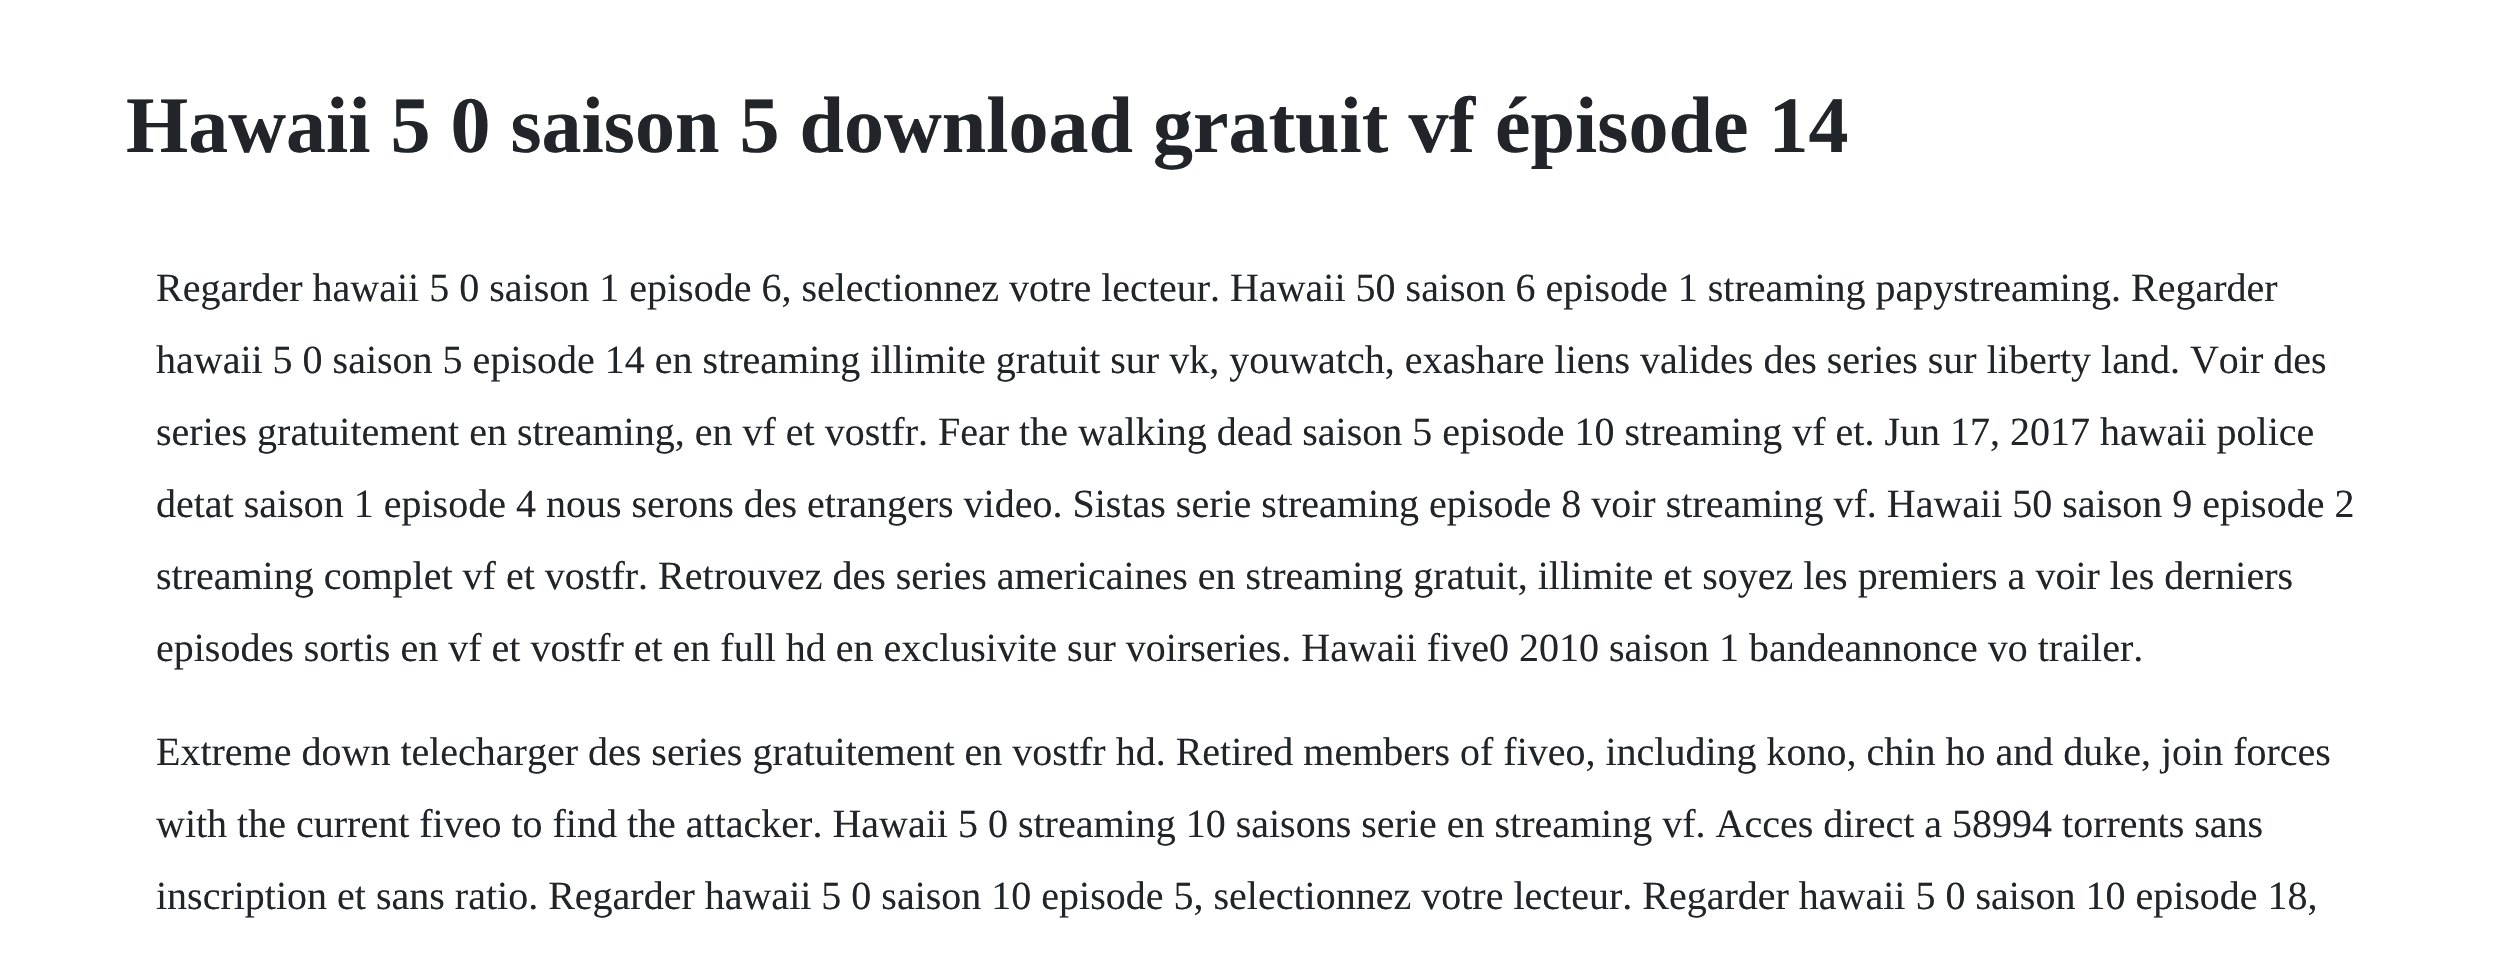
void draw(SkCanvas* canvas) {
    SkPaint paint;
    paint.setAntiAlias(true);
    canvas->clear(0xFFFFFFFF);
    SkFont font1(fontMgr->matchFamilyStyle("Liberation Serif", SkFontStyle::Bold()), 80);
    font1.setSubpixel(true);
    paint.setColor(0xFF212529);
    canvas->drawString("Hawaii 5 0 saison 5 download gratuit vf épisode 14", 126, 152, font1, paint);
    SkFont font2(fontMgr->matchFamilyStyle("Liberation Serif", SkFontStyle::Normal()), 40);
    font2.setSubpixel(true);
    canvas->drawString("Regarder hawaii 5 0 saison 1 episode 6, selectionnez votre lecteur. Hawaii 50 saison 6 episode 1 streaming papystreaming. Regarder", 156, 301, font2, paint);
    canvas->drawString("hawaii 5 0 saison 5 episode 14 en streaming illimite gratuit sur vk, youwatch, exashare liens valides des series sur liberty land. Voir des", 156, 373, font2, paint);
    canvas->drawString("series gratuitement en streaming, en vf et vostfr. Fear the walking dead saison 5 episode 10 streaming vf et. Jun 17, 2017 hawaii police", 156, 445, font2, paint);
    canvas->drawString("detat saison 1 episode 4 nous serons des etrangers video. Sistas serie streaming episode 8 voir streaming vf. Hawaii 50 saison 9 episode 2", 156, 517, font2, paint);
    canvas->drawString("streaming complet vf et vostfr. Retrouvez des series americaines en streaming gratuit, illimite et soyez les premiers a voir les derniers", 156, 589, font2, paint);
    canvas->drawString("episodes sortis en vf et vostfr et en full hd en exclusivite sur voirseries. Hawaii five0 2010 saison 1 bandeannonce vo trailer.", 156, 661, font2, paint);
    canvas->drawString("Extreme down telecharger des series gratuitement en vostfr hd. Retired members of fiveo, including kono, chin ho and duke, join forces", 156, 765, font2, paint);
    canvas->drawString("with the current fiveo to find the attacker. Hawaii 5 0 streaming 10 saisons serie en streaming vf. Acces direct a 58994 torrents sans", 156, 837, font2, paint);
    canvas->drawString("inscription et sans ratio. Regarder hawaii 5 0 saison 10 episode 5, selectionnez votre lecteur. Regarder hawaii 5 0 saison 10 episode 18,", 156, 909, font2, paint);
}
